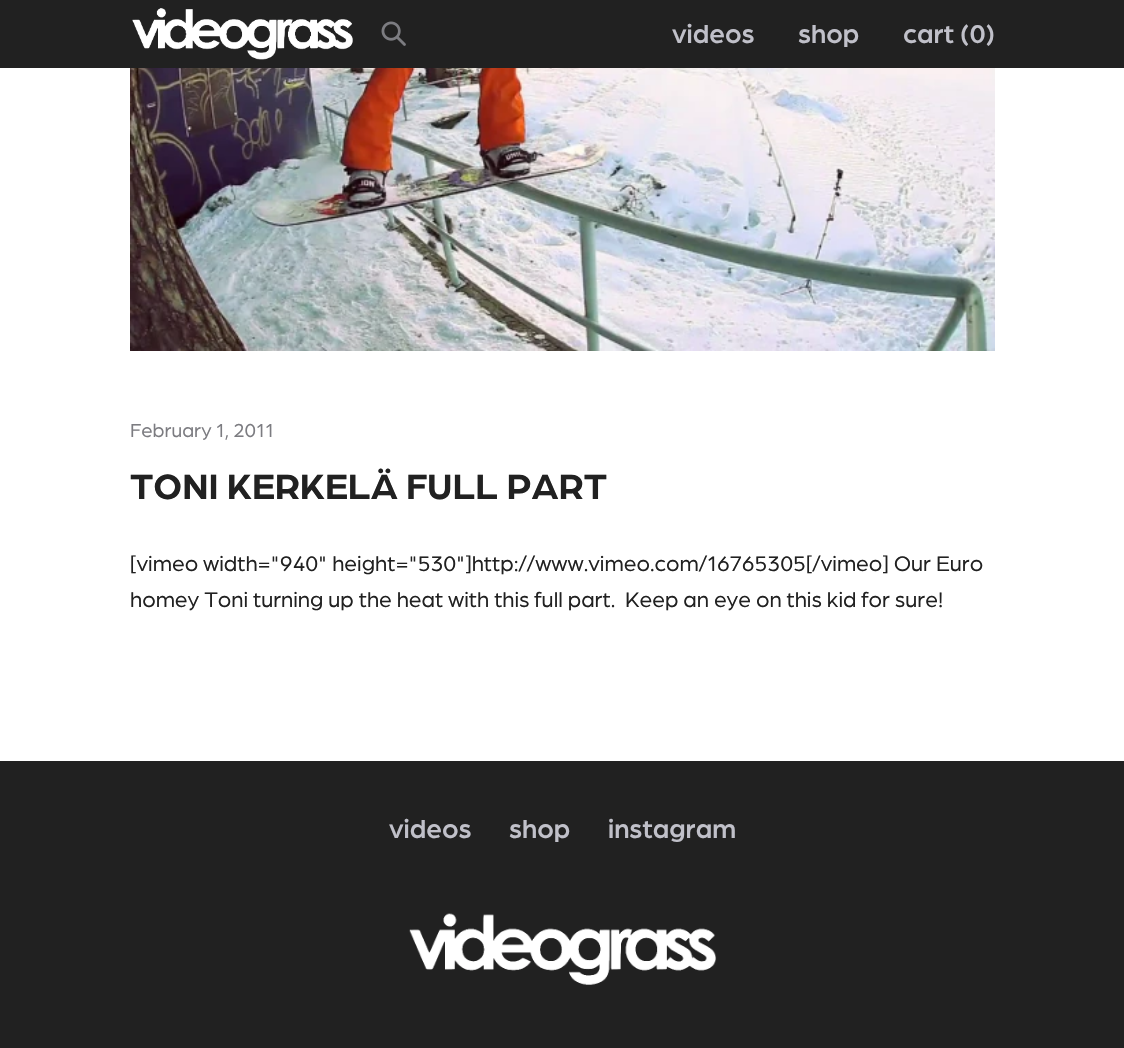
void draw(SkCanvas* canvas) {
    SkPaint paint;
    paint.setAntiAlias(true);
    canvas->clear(0xFFFFFFFF);
    paint.setColor(0xFF212121);
    canvas->drawRect(SkRect::MakeXYWH(0, 0, 1124, 68), paint);
    canvas->drawImageRect(SkImages::DeferredFromEncodedData(SkData::MakeFromFileName("img1.png")), SkRect::MakeXYWH(132, 8, 221, 52), SkSamplingOptions());
    canvas->drawImageRect(SkImages::DeferredFromEncodedData(SkData::MakeFromFileName("img2.png")), SkRect::MakeXYWH(381, 21, 25, 25), SkSamplingOptions());
    SkFont font1(fontMgr->matchFamilyStyle("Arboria", SkFontStyle(500, SkFontStyle::kNormal_Width, SkFontStyle::kUpright_Slant)), 27.5f);
    font1.setSubpixel(true);
    paint.setColor(0xFFC0C0C9);
    canvas->drawString("videos", 672, 43, font1, paint);
    canvas->drawString("shop", 798, 43, font1, paint);
    canvas->drawString("cart (0)", 903, 43, font1, paint);
    canvas->drawImageRect(SkImages::DeferredFromEncodedData(SkData::MakeFromFileName("img3.png")), SkRect::MakeXYWH(130, 68, 865, 283), SkSamplingOptions());
    SkFont font2(fontMgr->matchFamilyStyle("Arboria", SkFontStyle::Normal()), 20);
    font2.setSubpixel(true);
    paint.setColor(0xFF7C7C81);
    canvas->drawString("February 1, 2011", 130, 437, font2, paint);
    SkFont font3(fontMgr->matchFamilyStyle("Arboria", SkFontStyle::Bold()), 37.5f);
    font3.setSubpixel(true);
    paint.setColor(0xFF212121);
    canvas->drawString("TONI KERKELÄ FULL PART", 130, 499, font3, paint);
    SkFont font4(fontMgr->matchFamilyStyle("Arboria", SkFontStyle::Normal()), 22.5f);
    font4.setSubpixel(true);
    canvas->drawString("[vimeo width=\"940\" height=\"530\"]http://www.vimeo.com/16765305[/vimeo] Our Euro", 130, 571, font4, paint);
    canvas->drawString("homey Toni turning up the heat with this full part.", 130, 607, font4, paint);
    canvas->drawString("Keep an eye on this kid for sure!", 625, 607, font4, paint);
    canvas->drawRect(SkRect::MakeXYWH(0, 761, 1124, 287), paint);
    paint.setColor(0xFFC0C0C9);
    canvas->drawString("videos", 389, 838, font1, paint);
    canvas->drawString("shop", 509, 838, font1, paint);
    canvas->drawString("instagram", 608, 838, font1, paint);
    canvas->drawImageRect(SkImages::DeferredFromEncodedData(SkData::MakeFromFileName("img4.png")), SkRect::MakeXYWH(409, 913, 308, 72), SkSamplingOptions());
}
